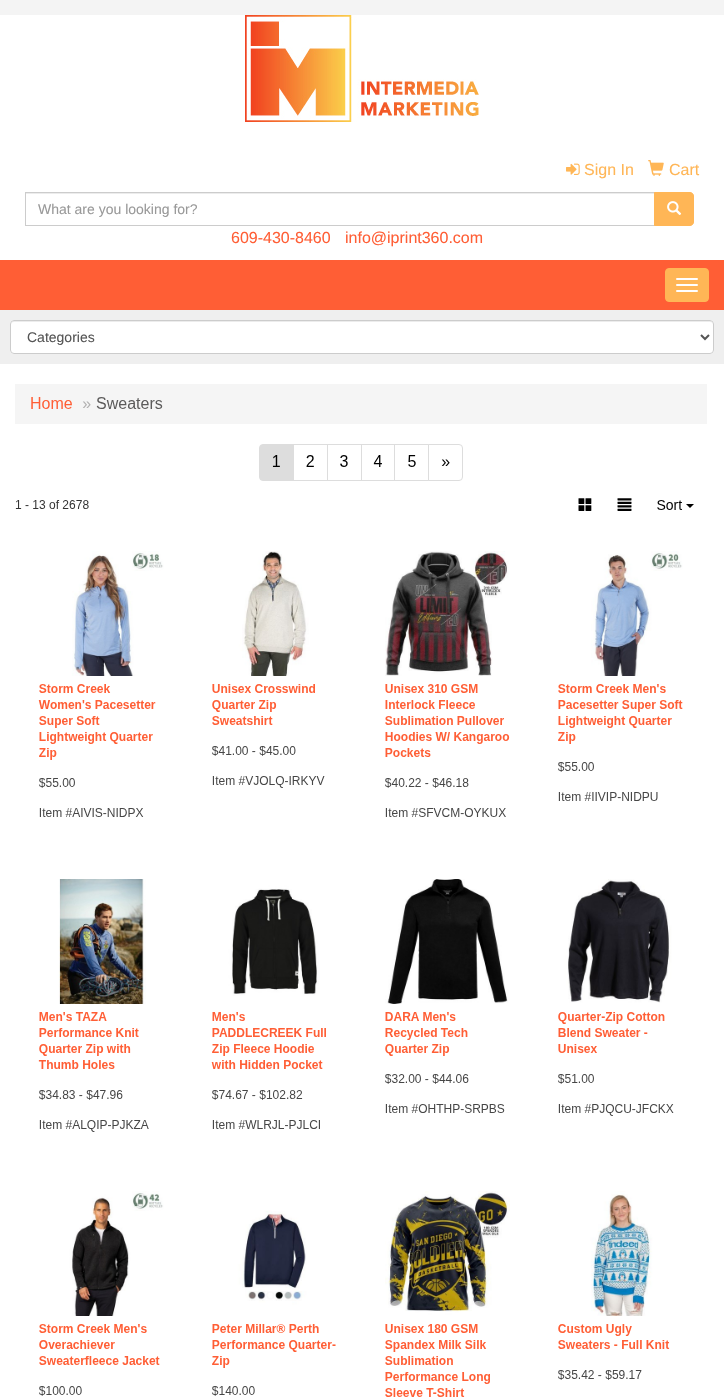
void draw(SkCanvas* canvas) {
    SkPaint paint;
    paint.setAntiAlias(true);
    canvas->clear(0xFFF4F4F4);
    paint.setColor(0xFFFFFFFF);
    canvas->drawRect(SkRect::MakeXYWH(0, 15, 724, 245), paint);
    canvas->drawImageRect(SkImages::DeferredFromEncodedData(SkData::MakeFromFileName("img1.png")), SkRect::MakeXYWH(245, 15, 234, 107), SkSamplingOptions());
    canvas->drawImageRect(SkImages::DeferredFromEncodedData(SkData::MakeFromFileName("img2.png")), SkRect::MakeXYWH(566, 163, 14, 12), SkSamplingOptions());
    SkFont font1(fontMgr->matchFamilyStyle("Liberation Sans", SkFontStyle::Normal()), 16);
    font1.setSubpixel(true);
    paint.setColor(0xFFFFB656);
    canvas->drawString("Sign In", 584, 175, font1, paint);
    canvas->drawImageRect(SkImages::DeferredFromEncodedData(SkData::MakeFromFileName("img3.png")), SkRect::MakeXYWH(648, 160, 16, 16), SkSamplingOptions());
    canvas->drawString("Cart", 669, 175, font1, paint);
    paint.setColor(0xFFECECEC);
    canvas->drawRect(SkRect::MakeXYWH(26, 193, 628, 1), paint);
    paint.setStyle(SkPaint::kStroke_Style);
    paint.setStrokeWidth(1);
    paint.setColor(0xFFCCCCCC);
    canvas->drawRect(SkRect::MakeXYWH(25.5f, 192.5f, 629, 33), paint);
    SkFont font2(fontMgr->matchFamilyStyle("Liberation Sans", SkFontStyle::Normal()), 14);
    font2.setSubpixel(true);
    paint.setStyle(SkPaint::kFill_Style);
    paint.setColor(0xFF999999);
    canvas->drawString("What are you looking for?", 38, 214, font2, paint);
    paint.setColor(0xFFFFB656);
    canvas->drawPath(SkPathBuilder().moveTo(654.5f, 192.5f).lineTo(690, 192.5f).cubicTo(692, 192.5f, 693.5f, 194, 693.5f, 196).lineTo(693.5f, 222).cubicTo(693.5f, 224, 692, 225.5f, 690, 225.5f).lineTo(654.5f, 225.5f).close().detach(), paint);
    paint.setStyle(SkPaint::kStroke_Style);
    canvas->drawPath(SkPathBuilder().moveTo(654.5f, 192.5f).lineTo(690, 192.5f).cubicTo(692, 192.5f, 693.5f, 194, 693.5f, 196).lineTo(693.5f, 222).cubicTo(693.5f, 224, 692, 225.5f, 690, 225.5f).lineTo(654.5f, 225.5f).close().detach(), paint);
    canvas->drawImageRect(SkImages::DeferredFromEncodedData(SkData::MakeFromFileName("img4.png")), SkRect::MakeXYWH(667, 201, 15, 14), SkSamplingOptions());
    paint.setStyle(SkPaint::kFill_Style);
    paint.setColor(0xFFFF5E35);
    canvas->drawString("609-430-8460", 231, 243, font1, paint);
    canvas->drawString("info@iprint360.com", 345, 243, font1, paint);
    canvas->drawRect(SkRect::MakeXYWH(0, 260, 724, 50), paint);
    paint.setColor(0xFFFFB656);
    canvas->drawRoundRect(SkRect::MakeXYWH(665.5f, 268.5f, 43, 33), 3.5f, 3.5f, paint);
    paint.setStyle(SkPaint::kStroke_Style);
    canvas->drawRoundRect(SkRect::MakeXYWH(665.5f, 268.5f, 43, 33), 3.5f, 3.5f, paint);
    paint.setStyle(SkPaint::kFill_Style);
    paint.setColor(0xFFFFFFFF);
    canvas->drawRoundRect(SkRect::MakeXYWH(676, 278, 22, 2), 1, 1, paint);
    canvas->drawRoundRect(SkRect::MakeXYWH(676, 284, 22, 2), 1, 1, paint);
    canvas->drawRoundRect(SkRect::MakeXYWH(676, 290, 22, 2), 1, 1, paint);
    canvas->drawRect(SkRect::MakeXYWH(0, 364, 724, 1034), paint);
    paint.setColor(0xFFEFEFEF);
    canvas->drawRect(SkRect::MakeXYWH(0, 310, 724, 54), paint);
    paint.setColor(0xFFFFFFFF);
    canvas->drawRoundRect(SkRect::MakeXYWH(10, 320, 704, 34), 4, 4, paint);
    paint.setColor(0xFFECECEC);
    canvas->drawPath(SkPathBuilder().moveTo(14, 322).lineTo(710, 322).cubicTo(712, 322, 713, 323, 713, 325).cubicTo(713, 323, 712, 321, 710, 321).lineTo(14, 321).cubicTo(12, 321, 11, 323, 11, 325).cubicTo(11, 323, 12, 322, 14, 322).close().detach(), paint);
    paint.setStyle(SkPaint::kStroke_Style);
    paint.setColor(0xFFCCCCCC);
    canvas->drawRoundRect(SkRect::MakeXYWH(10.5f, 320.5f, 703, 33), 3.5f, 3.5f, paint);
    paint.setStrokeWidth(2);
    paint.setColor(0xFF555555);
    canvas->drawPath(SkPathBuilder().moveTo(701, 335).lineTo(705, 339).lineTo(709, 335).detach(), paint);
    paint.setStyle(SkPaint::kFill_Style);
    canvas->drawString("Categories", 27, 342, font2, paint);
    canvas->drawImageRect(SkImages::DeferredFromEncodedData(SkData::MakeFromFileName("img5.png")), SkRect::MakeXYWH(15, 384, 692, 1013), SkSamplingOptions());
}
